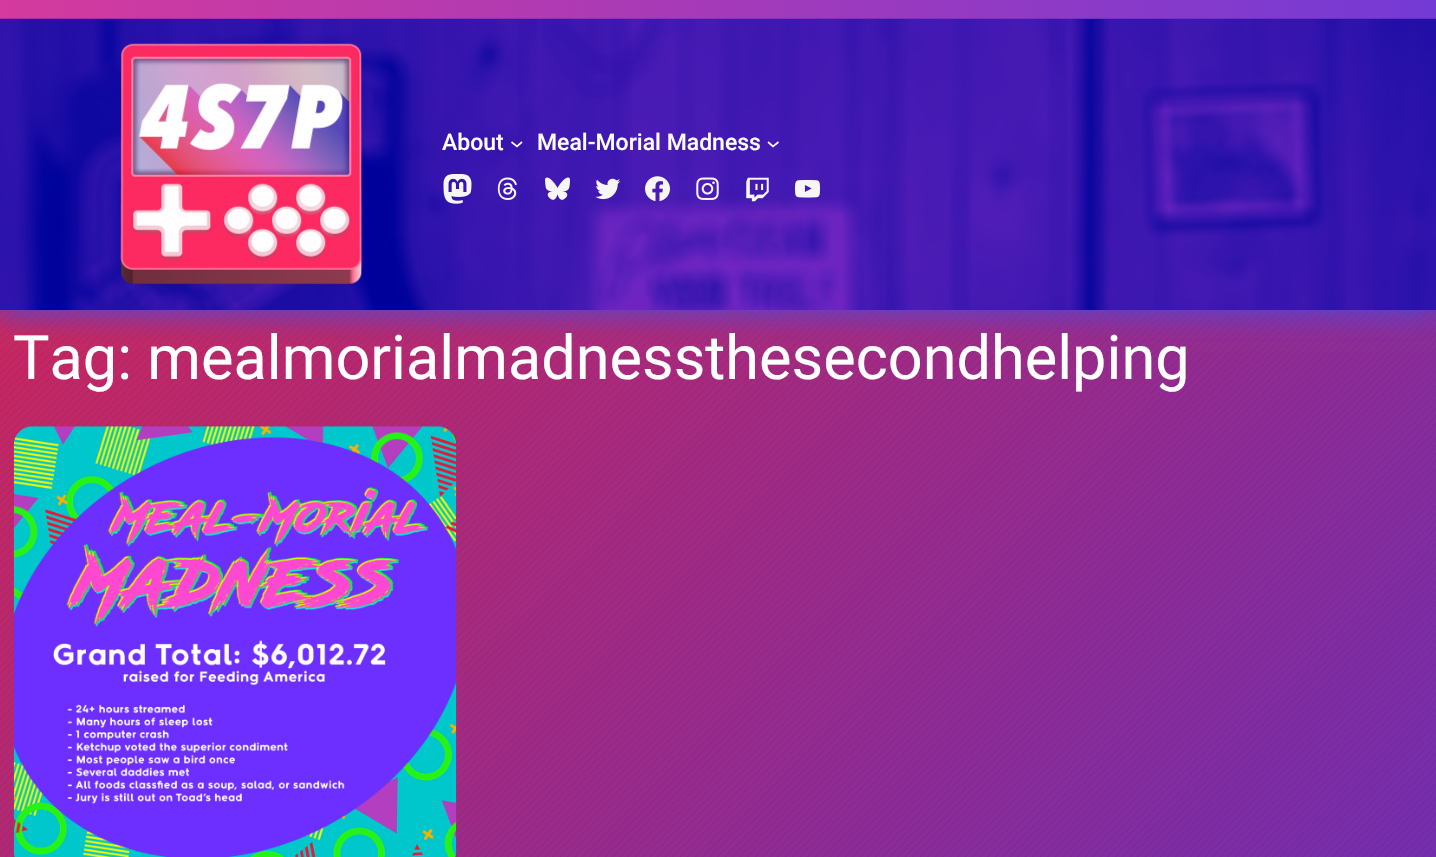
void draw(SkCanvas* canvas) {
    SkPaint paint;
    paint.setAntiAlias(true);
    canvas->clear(0xFFFFFFFF);
    canvas->drawImageRect(SkImages::DeferredFromEncodedData(SkData::MakeFromFileName("img1.png")), SkRect::MakeXYWH(0, 310, 1436, 547), SkSamplingOptions());
    paint.setColor(0x995545CE);
    paint.setMaskFilter(SkMaskFilter::MakeBlur(kNormal_SkBlurStyle, 12.5f));
    canvas->drawRect(SkRect::MakeXYWH(0, 4, 1436, 310), paint);
    paint.setMaskFilter(nullptr);
    paint.setMaskFilter(SkMaskFilter::MakeBlur(kNormal_SkBlurStyle, 12.5f));
    canvas->drawRect(SkRect::MakeXYWH(0, 4, 1436, 310), paint);
    paint.setMaskFilter(nullptr);
    canvas->drawImageRect(SkImages::DeferredFromEncodedData(SkData::MakeFromFileName("img2.png")), SkRect::MakeXYWH(0, 18, 1436, 292), SkSamplingOptions());
    canvas->drawImageRect(SkImages::DeferredFromEncodedData(SkData::MakeFromFileName("img3.png")), SkRect::MakeXYWH(0, 0, 1436, 19), SkSamplingOptions());
    canvas->drawImageRect(SkImages::DeferredFromEncodedData(SkData::MakeFromFileName("img4.png")), SkRect::MakeXYWH(120, 43, 243, 242), SkSamplingOptions());
    SkFont font1(fontMgr->matchFamilyStyle("Roboto", SkFontStyle(500, SkFontStyle::kNormal_Width, SkFontStyle::kUpright_Slant)), 23);
    font1.setSubpixel(true);
    paint.setColor(0xFFFFFFFF);
    canvas->drawString("About", 442, 150, font1, paint);
    paint.setStyle(SkPaint::kStroke_Style);
    paint.setStrokeWidth(1.7f);
    canvas->drawPath(SkPathBuilder().moveTo(511.5f, 142).lineTo(517, 146.5f).lineTo(522, 142).detach(), paint);
    paint.setStyle(SkPaint::kFill_Style);
    canvas->drawString("Meal-Morial Madness", 537, 150, font1, paint);
    paint.setStyle(SkPaint::kStroke_Style);
    canvas->drawPath(SkPathBuilder().moveTo(768, 142).lineTo(773, 146.5f).lineTo(778.5f, 142).detach(), paint);
    canvas->drawImageRect(SkImages::DeferredFromEncodedData(SkData::MakeFromFileName("img5.png")), SkRect::MakeXYWH(443, 174, 29, 30), SkSamplingOptions());
    canvas->drawImageRect(SkImages::DeferredFromEncodedData(SkData::MakeFromFileName("img6.png")), SkRect::MakeXYWH(497, 177, 20, 23), SkSamplingOptions());
    canvas->drawImageRect(SkImages::DeferredFromEncodedData(SkData::MakeFromFileName("img7.png")), SkRect::MakeXYWH(545, 177, 25, 23), SkSamplingOptions());
    canvas->drawImageRect(SkImages::DeferredFromEncodedData(SkData::MakeFromFileName("img8.png")), SkRect::MakeXYWH(595, 178, 26, 22), SkSamplingOptions());
    canvas->drawImageRect(SkImages::DeferredFromEncodedData(SkData::MakeFromFileName("img9.png")), SkRect::MakeXYWH(645, 176, 25, 26), SkSamplingOptions());
    canvas->drawImageRect(SkImages::DeferredFromEncodedData(SkData::MakeFromFileName("img10.png")), SkRect::MakeXYWH(696, 177, 23, 23), SkSamplingOptions());
    canvas->drawImageRect(SkImages::DeferredFromEncodedData(SkData::MakeFromFileName("img11.png")), SkRect::MakeXYWH(746, 177, 23, 25), SkSamplingOptions());
    canvas->drawImageRect(SkImages::DeferredFromEncodedData(SkData::MakeFromFileName("img12.png")), SkRect::MakeXYWH(795, 179, 25, 19), SkSamplingOptions());
    SkFont font2(fontMgr->matchFamilyStyle("Roboto", SkFontStyle::Normal()), 61.25f);
    font2.setSubpixel(true);
    paint.setStyle(SkPaint::kFill_Style);
    canvas->drawString("Tag: mealmorialmadnessthesecondhelping", 13, 379, font2, paint);
    canvas->drawImageRect(SkImages::DeferredFromEncodedData(SkData::MakeFromFileName("img13.png")), SkRect::MakeXYWH(13, 426, 444, 431), SkSamplingOptions());
}
